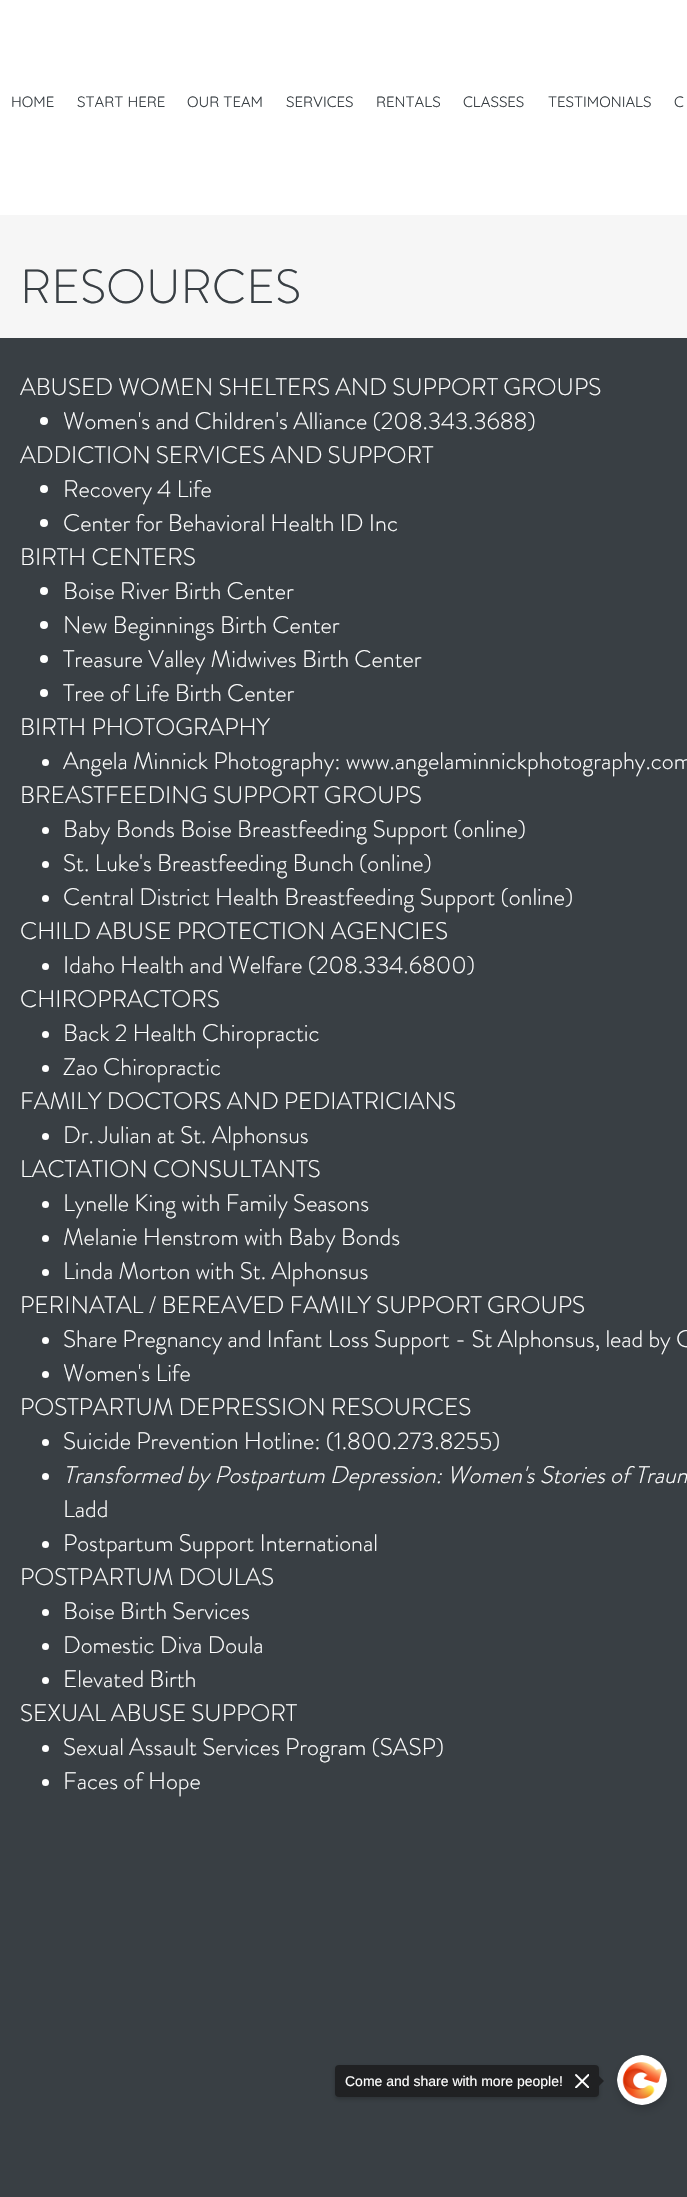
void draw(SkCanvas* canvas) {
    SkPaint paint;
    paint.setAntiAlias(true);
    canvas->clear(0xFFFFFFFF);
    SkFont font1(fontMgr->matchFamilyStyle("Quicksand", SkFontStyle::Normal()), 15);
    font1.setSubpixel(true);
    paint.setColor(0xFF393F44);
    canvas->drawString("HOME", 11, 107, font1, paint);
    canvas->drawString("START HERE", 77, 107, font1, paint);
    canvas->drawString("OUR TEAM", 187, 107, font1, paint);
    canvas->drawString("SERVICES", 286, 107, font1, paint);
    canvas->drawString("RENTALS", 376, 107, font1, paint);
    canvas->drawString("CLASSES", 463, 107, font1, paint);
    canvas->drawString("TESTIMONIALS", 548, 107, font1, paint);
    canvas->drawString("C", 674, 107, font1, paint);
    paint.setColor(0xFFF6F6F6);
    canvas->drawRect(SkRect::MakeXYWH(0, 215, 687, 123), paint);
    SkFont font2(fontMgr->matchFamilyStyle("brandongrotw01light", SkFontStyle(300, SkFontStyle::kNormal_Width, SkFontStyle::kUpright_Slant)), 48);
    font2.setSubpixel(true);
    paint.setColor(0xFF393F44);
    canvas->drawString("RESOURCES", 20, 303, font2, paint);
    canvas->drawRect(SkRect::MakeXYWH(0, 338, 687, 1859), paint);
    SkFont font3(fontMgr->matchFamilyStyle("brandongrotw01light", SkFontStyle(300, SkFontStyle::kNormal_Width, SkFontStyle::kUpright_Slant)), 24);
    font3.setSubpixel(true);
    paint.setColor(0xFFFFFFFF);
    canvas->drawString("ABUSED WOMEN SHELTERS AND SUPPORT GROUPS", 20, 395, font3, paint);
    canvas->drawCircle(44, 421, 4, paint);
    canvas->drawString("Women's and Children's Alliance (208.343.3688)", 63, 429, font3, paint);
    canvas->drawString("ADDICTION SERVICES AND SUPPORT", 20, 463, font3, paint);
    canvas->drawCircle(44, 489, 4, paint);
    canvas->drawString("Recovery 4 Life", 63, 497, font3, paint);
    canvas->drawCircle(44, 523, 4, paint);
    canvas->drawString("Center for Behavioral Health ID Inc", 63, 531, font3, paint);
    canvas->drawString("BIRTH CENTERS", 20, 565, font3, paint);
    canvas->drawCircle(44, 591, 4, paint);
    canvas->drawString("Boise River Birth Center", 63, 599, font3, paint);
    canvas->drawCircle(44, 625, 4, paint);
    canvas->drawString("New Beginnings Birth Center", 63, 633, font3, paint);
    canvas->drawCircle(44, 659, 4, paint);
    canvas->drawString("Treasure Valley Midwives Birth Center", 63, 667, font3, paint);
    canvas->drawCircle(44, 693, 4, paint);
    canvas->drawString("Tree of Life Birth Center", 63, 701, font3, paint);
    canvas->drawString("BIRTH PHOTOGRAPHY", 20, 735, font3, paint);
    canvas->drawCircle(45.5f, 762.5f, 3.5f, paint);
    canvas->drawString("Angela Minnick Photography: www.angelaminnickphotography.com", 63, 769, font3, paint);
    canvas->drawString("BREASTFEEDING SUPPORT GROUPS", 20, 803, font3, paint);
    canvas->drawCircle(45.5f, 830.5f, 3.5f, paint);
    canvas->drawString("Baby Bonds Boise Breastfeeding Support (online)", 63, 837, font3, paint);
    canvas->drawCircle(45.5f, 864.5f, 3.5f, paint);
    canvas->drawString("St. Luke's Breastfeeding Bunch (online)", 63, 871, font3, paint);
    canvas->drawCircle(45.5f, 898.5f, 3.5f, paint);
    canvas->drawString("Central District Health Breastfeeding Support (online)", 63, 905, font3, paint);
    canvas->drawString("CHILD ABUSE PROTECTION AGENCIES", 20, 939, font3, paint);
    canvas->drawCircle(45.5f, 966.5f, 3.5f, paint);
    canvas->drawString("Idaho Health and Welfare (208.334.6800)", 63, 973, font3, paint);
    canvas->drawString("CHIROPRACTORS", 20, 1007, font3, paint);
    canvas->drawCircle(45.5f, 1034.5f, 3.5f, paint);
    canvas->drawString("Back 2 Health Chiropractic", 63, 1041, font3, paint);
    canvas->drawCircle(45.5f, 1068.5f, 3.5f, paint);
    canvas->drawString("Zao Chiropractic", 63, 1075, font3, paint);
    canvas->drawString("FAMILY DOCTORS AND PEDIATRICIANS", 20, 1109, font3, paint);
    canvas->drawCircle(45.5f, 1136.5f, 3.5f, paint);
    canvas->drawString("Dr. Julian at St. Alphonsus", 63, 1143, font3, paint);
    canvas->drawString("LACTATION CONSULTANTS", 20, 1177, font3, paint);
    canvas->drawCircle(45.5f, 1204.5f, 3.5f, paint);
    canvas->drawString("Lynelle King with Family Seasons", 63, 1211, font3, paint);
    canvas->drawCircle(45.5f, 1238.5f, 3.5f, paint);
    canvas->drawString("Melanie Henstrom with Baby Bonds", 63, 1245, font3, paint);
    canvas->drawCircle(45.5f, 1272.5f, 3.5f, paint);
    canvas->drawString("Linda Morton with St. Alphonsus", 63, 1279, font3, paint);
    canvas->drawString("PERINATAL / BEREAVED FAMILY SUPPORT GROUPS", 20, 1313, font3, paint);
    canvas->drawCircle(45.5f, 1340.5f, 3.5f, paint);
    canvas->drawString("Share Pregnancy and Infant Loss Support - St Alphonsus, lead by C", 63, 1347, font3, paint);
    canvas->drawCircle(45.5f, 1374.5f, 3.5f, paint);
    canvas->drawString("Women's Life", 63, 1381, font3, paint);
    canvas->drawString("POSTPARTUM DEPRESSION RESOURCES", 20, 1415, font3, paint);
    canvas->drawCircle(45.5f, 1442.5f, 3.5f, paint);
    canvas->drawString("Suicide Prevention Hotline: (1.800.273.8255)", 63, 1449, font3, paint);
    canvas->drawCircle(45.5f, 1476.5f, 3.5f, paint);
    SkFont font4(fontMgr->matchFamilyStyle("brandongrotw01light", SkFontStyle(300, SkFontStyle::kNormal_Width, SkFontStyle::kItalic_Slant)), 24);
    font4.setSubpixel(true);
    canvas->drawString("Transformed by Postpartum Depression: Women's Stories of Traum", 63, 1483, font4, paint);
    canvas->drawString("Ladd", 63, 1517, font3, paint);
    canvas->drawCircle(45.5f, 1544.5f, 3.5f, paint);
    canvas->drawString("Postpartum Support International", 63, 1551, font3, paint);
    canvas->drawString("POSTPARTUM DOULAS", 20, 1585, font3, paint);
    canvas->drawCircle(45.5f, 1612.5f, 3.5f, paint);
    canvas->drawString("Boise Birth Services", 63, 1619, font3, paint);
    canvas->drawCircle(45.5f, 1646.5f, 3.5f, paint);
    canvas->drawString("Domestic Diva Doula", 63, 1653, font3, paint);
    canvas->drawCircle(45.5f, 1680.5f, 3.5f, paint);
    canvas->drawString("Elevated Birth", 63, 1687, font3, paint);
    canvas->drawString("SEXUAL ABUSE SUPPORT", 20, 1721, font3, paint);
    canvas->drawCircle(45.5f, 1748.5f, 3.5f, paint);
    canvas->drawString("Sexual Assault Services Program (SASP)", 63, 1755, font3, paint);
    canvas->drawCircle(45.5f, 1782.5f, 3.5f, paint);
    canvas->drawString("Faces of Hope", 63, 1789, font3, paint);
    paint.setColor(0x2B000000);
    paint.setMaskFilter(SkMaskFilter::MakeBlur(kNormal_SkBlurStyle, 4.5f));
    canvas->drawRoundRect(SkRect::MakeXYWH(618, 2059, 50, 50), 25, 25, paint);
    paint.setMaskFilter(nullptr);
    paint.setColor(0x38000000);
    paint.setMaskFilter(SkMaskFilter::MakeBlur(kNormal_SkBlurStyle, 2));
    canvas->drawRoundRect(SkRect::MakeXYWH(335, 2067, 264, 32), 4, 4, paint);
    paint.setMaskFilter(nullptr);
    paint.setColor(0xFF202123);
    canvas->drawRoundRect(SkRect::MakeXYWH(335, 2065, 264, 32), 4, 4, paint);
    SkFont font5(fontMgr->matchFamilyStyle("Liberation Sans", SkFontStyle::Normal()), 14);
    font5.setSubpixel(true);
    paint.setColor(0xFFFFFFFF);
    canvas->drawString("Come and share with more people!", 345, 2086, font5, paint);
    canvas->drawImageRect(SkImages::DeferredFromEncodedData(SkData::MakeFromFileName("img1.png")), SkRect::MakeXYWH(575, 2074, 14, 14), SkSamplingOptions());
    paint.setColor(0xFF202123);
    canvas->drawPath(SkPathBuilder().moveTo(597, 2088).lineTo(597, 2074).lineTo(604, 2081).close().detach(), paint);
    canvas->drawImageRect(SkImages::DeferredFromEncodedData(SkData::MakeFromFileName("img2.png")), SkRect::MakeXYWH(617, 2055, 50, 50), SkSamplingOptions());
}
